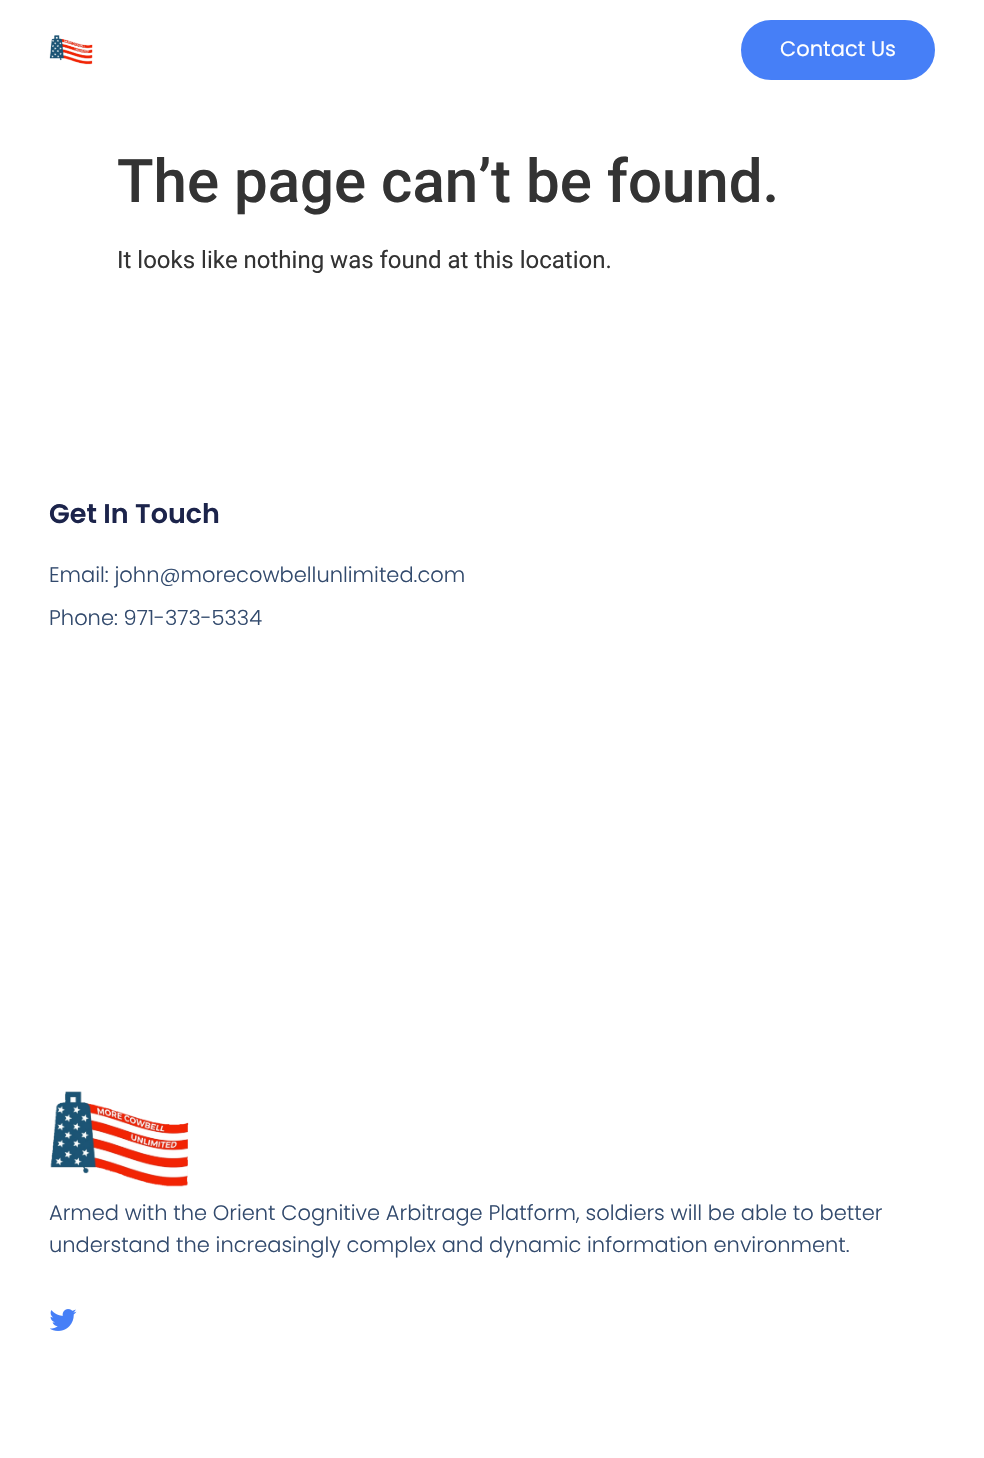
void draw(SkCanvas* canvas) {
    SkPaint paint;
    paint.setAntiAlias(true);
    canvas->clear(0xFFFFFFFF);
    canvas->drawImageRect(SkImages::DeferredFromEncodedData(SkData::MakeFromFileName("img1.png")), SkRect::MakeXYWH(49, 35, 44, 30), SkSamplingOptions());
    paint.setColor(0xFF467FF7);
    canvas->drawRoundRect(SkRect::MakeXYWH(742, 21, 192, 58), 29, 29, paint);
    paint.setStyle(SkPaint::kStroke_Style);
    paint.setStrokeWidth(2);
    canvas->drawRoundRect(SkRect::MakeXYWH(742, 21, 192, 58), 29, 29, paint);
    SkFont font1(fontMgr->matchFamilyStyle("Poppins", SkFontStyle::Normal()), 21);
    font1.setSubpixel(true);
    paint.setStyle(SkPaint::kFill_Style);
    paint.setColor(0xFFFFFFFF);
    canvas->drawString("Contact Us", 780, 56, font1, paint);
    SkFont font2(fontMgr->matchFamilyStyle("Roboto", SkFontStyle(500, SkFontStyle::kNormal_Width, SkFontStyle::kUpright_Slant)), 60);
    font2.setSubpixel(true);
    paint.setColor(0xFF333333);
    canvas->drawString("The page can’t be found.", 117, 202, font2, paint);
    SkFont font3(fontMgr->matchFamilyStyle("Roboto", SkFontStyle::Normal()), 24);
    font3.setSubpixel(true);
    canvas->drawString("It looks like nothing was found at this location.", 117, 268, font3, paint);
    SkFont font4(fontMgr->matchFamilyStyle("Poppins", SkFontStyle(600, SkFontStyle::kNormal_Width, SkFontStyle::kUpright_Slant)), 27);
    font4.setSubpixel(true);
    paint.setColor(0xFF1C244B);
    canvas->drawString("Get In Touch", 49, 523, font4, paint);
    SkFont font5(fontMgr->matchFamilyStyle("Poppins", SkFontStyle(300, SkFontStyle::kNormal_Width, SkFontStyle::kUpright_Slant)), 21);
    font5.setSubpixel(true);
    paint.setColor(0xFF324A6D);
    canvas->drawString("Email: john@morecowbellunlimited.com", 49, 582, font5, paint);
    canvas->drawString("Phone: 971-373-5334", 49, 625, font5, paint);
    canvas->drawImageRect(SkImages::DeferredFromEncodedData(SkData::MakeFromFileName("img2.png")), SkRect::MakeXYWH(50, 1091, 139, 96), SkSamplingOptions());
    canvas->drawString("Armed with the Orient Cognitive Arbitrage Platform, soldiers will be able to better", 49, 1220, font5, paint);
    canvas->drawString("understand the increasingly complex and dynamic information environment.", 49, 1252, font5, paint);
    canvas->drawImageRect(SkImages::DeferredFromEncodedData(SkData::MakeFromFileName("img3.png")), SkRect::MakeXYWH(50, 1309, 27, 22), SkSamplingOptions());
}
